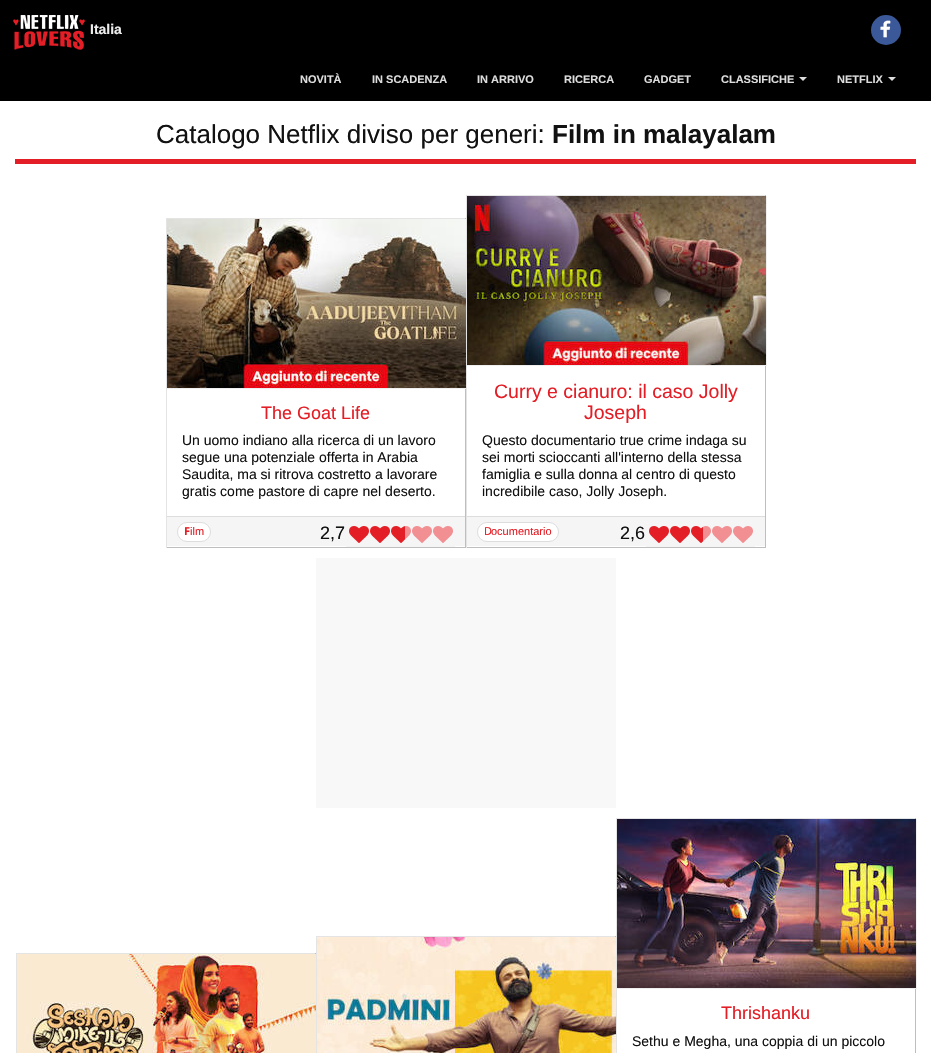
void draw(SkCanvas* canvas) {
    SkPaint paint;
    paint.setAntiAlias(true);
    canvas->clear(0xFFFFFFFF);
    paint.setColor(0xFF000000);
    canvas->drawRect(SkRect::MakeXYWH(0, 0, 931, 101), paint);
    canvas->drawImageRect(SkImages::DeferredFromEncodedData(SkData::MakeFromFileName("img1.png")), SkRect::MakeXYWH(13, 15, 72, 35), SkSamplingOptions());
    SkFont font1(fontMgr->matchFamilyStyle("Liberation Sans", SkFontStyle::Bold()), 14);
    font1.setSubpixel(true);
    paint.setColor(0xFFEEEEEE);
    canvas->drawString("Italia", 90, 34, font1, paint);
    paint.setColor(0xFF3B5998);
    canvas->drawCircle(886, 30, 15, paint);
    canvas->drawImageRect(SkImages::DeferredFromEncodedData(SkData::MakeFromFileName("img2.png")), SkRect::MakeXYWH(880, 20, 11, 18), SkSamplingOptions());
    SkFont font2(fontMgr->matchFamilyStyle("Liberation Sans", SkFontStyle::Bold()), 11);
    font2.setSubpixel(true);
    paint.setColor(0xFFDDDDDD);
    canvas->drawString("NOVITÀ", 300, 83, font2, paint);
    canvas->drawString("IN SCADENZA", 372, 83, font2, paint);
    canvas->drawString("IN ARRIVO", 477, 83, font2, paint);
    canvas->drawString("RICERCA", 564, 83, font2, paint);
    canvas->drawString("GADGET", 644, 83, font2, paint);
    canvas->drawString("CLASSIFICHE", 721, 83, font2, paint);
    canvas->drawPath(SkPathBuilder().moveTo(799, 77).lineTo(807, 77).lineTo(803, 81).close().detach(), paint);
    canvas->drawString("NETFLIX", 837, 83, font2, paint);
    canvas->drawPath(SkPathBuilder().moveTo(888, 77).lineTo(896, 77).lineTo(892, 81).close().detach(), paint);
    paint.setColor(0xFFE41E26);
    canvas->drawRect(SkRect::MakeXYWH(15, 159, 901, 5), paint);
    SkFont font3(fontMgr->matchFamilyStyle("Liberation Sans", SkFontStyle::Normal()), 26);
    font3.setSubpixel(true);
    paint.setColor(0xFF111111);
    canvas->drawString("Catalogo Netflix diviso per generi:", 156, 143, font3, paint);
    SkFont font4(fontMgr->matchFamilyStyle("Liberation Sans", SkFontStyle::Bold()), 26);
    font4.setSubpixel(true);
    canvas->drawString("Film in malayalam", 552, 143, font4, paint);
    paint.setColor(0xFFE4E4E4);
    canvas->drawRect(SkRect::MakeXYWH(166, 218, 300, 1), paint);
    paint.setColor(0xFFBEBEBD);
    canvas->drawRect(SkRect::MakeXYWH(465, 218, 1, 330), paint);
    canvas->drawRect(SkRect::MakeXYWH(166, 547, 300, 1), paint);
    paint.setColor(0xFFE4E4E4);
    canvas->drawRect(SkRect::MakeXYWH(166, 218, 1, 330), paint);
    canvas->save();
    canvas->clipRect(SkRect::MakeXYWH(167, 219, 300, 170));
    paint.setStyle(SkPaint::kStroke_Style);
    paint.setStrokeWidth(1);
    paint.setColor(0xFFEFEFEF);
    canvas->drawRect(SkRect::MakeXYWH(165.5f, 218.5f, 301, 170), paint);
    canvas->restore();
    canvas->drawImageRect(SkImages::DeferredFromEncodedData(SkData::MakeFromFileName("img3.png")), SkRect::MakeXYWH(167, 219, 299, 169), SkSamplingOptions());
    SkFont font5(fontMgr->matchFamilyStyle("Liberation Sans", SkFontStyle::Normal()), 18);
    font5.setSubpixel(true);
    paint.setStyle(SkPaint::kFill_Style);
    paint.setColor(0xFFE31E26);
    canvas->drawString("The Goat Life", 261, 419, font5, paint);
    SkFont font6(fontMgr->matchFamilyStyle("Liberation Sans", SkFontStyle::Normal()), 14);
    font6.setSubpixel(true);
    paint.setColor(0xFF111111);
    canvas->drawString("Un uomo indiano alla ricerca di un lavoro", 182, 445, font6, paint);
    canvas->drawString("segue una potenziale offerta in Arabia", 182, 462, font6, paint);
    canvas->drawString("Saudita, ma si ritrova costretto a lavorare", 182, 479, font6, paint);
    canvas->drawString("gratis come pastore di capre nel deserto.", 182, 496, font6, paint);
    paint.setColor(0xFFF5F5F5);
    canvas->drawRect(SkRect::MakeXYWH(167, 517, 298, 29), paint);
    paint.setColor(0xFFDDDDDD);
    canvas->drawRect(SkRect::MakeXYWH(167, 516, 298, 1), paint);
    paint.setColor(0xFFFFFFFF);
    canvas->drawRoundRect(SkRect::MakeXYWH(177.5f, 522.5f, 33, 19), 9.5f, 9.5f, paint);
    paint.setStyle(SkPaint::kStroke_Style);
    paint.setColor(0xFFDDDDDD);
    canvas->drawRoundRect(SkRect::MakeXYWH(177.5f, 522.5f, 33, 19), 9.5f, 9.5f, paint);
    SkFont font7(fontMgr->matchFamilyStyle("Noto Sans", SkFontStyle::Bold()), 11);
    font7.setSubpixel(true);
    paint.setStyle(SkPaint::kFill_Style);
    paint.setColor(0xFFE31E26);
    canvas->drawString("F", 184, 535, font7, paint);
    SkFont font8(fontMgr->matchFamilyStyle("Liberation Sans", SkFontStyle::Normal()), 11);
    font8.setSubpixel(true);
    canvas->drawString("ilm", 190, 535, font8, paint);
    paint.setColor(0xFF111111);
    canvas->drawString("2,7", 320, 539, font5, paint);
    paint.setColor(0xFFE31E26);
    canvas->drawRect(SkRect::MakeXYWH(349, 526, 56, 17), paint);
    paint.setColor(0xFFF18F93);
    canvas->drawRect(SkRect::MakeXYWH(405, 526, 48, 17), paint);
    canvas->drawImageRect(SkImages::DeferredFromEncodedData(SkData::MakeFromFileName("img4.png")), SkRect::MakeXYWH(346, 524, 109, 23), SkSamplingOptions());
    paint.setColor(0xFFE4E4E4);
    canvas->drawRect(SkRect::MakeXYWH(466, 195, 300, 1), paint);
    paint.setColor(0xFFBEBEBD);
    canvas->drawRect(SkRect::MakeXYWH(765, 195, 1, 353), paint);
    canvas->drawRect(SkRect::MakeXYWH(466, 547, 300, 1), paint);
    paint.setColor(0xFFE4E4E4);
    canvas->drawRect(SkRect::MakeXYWH(466, 195, 1, 353), paint);
    canvas->save();
    canvas->clipRect(SkRect::MakeXYWH(467, 196, 300, 170));
    paint.setStyle(SkPaint::kStroke_Style);
    paint.setColor(0xFFEFEFEF);
    canvas->drawRect(SkRect::MakeXYWH(465.5f, 195.5f, 301, 170), paint);
    canvas->restore();
    canvas->drawImageRect(SkImages::DeferredFromEncodedData(SkData::MakeFromFileName("img5.png")), SkRect::MakeXYWH(467, 196, 299, 169), SkSamplingOptions());
    SkFont font9(fontMgr->matchFamilyStyle("Liberation Sans", SkFontStyle::Normal()), 19.5f);
    font9.setSubpixel(true);
    paint.setStyle(SkPaint::kFill_Style);
    paint.setColor(0xFFE31E26);
    canvas->drawString("Curry e cianuro: il caso Jolly", 494, 398, font9, paint);
    canvas->drawString("Joseph", 584, 419, font9, paint);
    paint.setColor(0xFF111111);
    canvas->drawString("Questo documentario true crime indaga su", 482, 445, font6, paint);
    canvas->drawString("sei morti scioccanti all'interno della stessa", 482, 462, font6, paint);
    canvas->drawString("famiglia e sulla donna al centro di questo", 482, 479, font6, paint);
    canvas->drawString("incredibile caso, Jolly Joseph.", 482, 496, font6, paint);
    paint.setColor(0xFFF5F5F5);
    canvas->drawRect(SkRect::MakeXYWH(467, 517, 298, 29), paint);
    paint.setColor(0xFFDDDDDD);
    canvas->drawRect(SkRect::MakeXYWH(467, 516, 298, 1), paint);
    paint.setColor(0xFFFFFFFF);
    canvas->drawRoundRect(SkRect::MakeXYWH(477.5f, 522.5f, 81, 19), 9.5f, 9.5f, paint);
    paint.setStyle(SkPaint::kStroke_Style);
    paint.setColor(0xFFDDDDDD);
    canvas->drawRoundRect(SkRect::MakeXYWH(477.5f, 522.5f, 81, 19), 9.5f, 9.5f, paint);
    SkFont font10(fontMgr->matchFamilyStyle("Noto Sans", SkFontStyle::Normal()), 11);
    font10.setSubpixel(true);
    paint.setStyle(SkPaint::kFill_Style);
    paint.setColor(0xFFE31E26);
    canvas->drawString("D", 484, 535, font10, paint);
    canvas->drawString("ocumentario", 491, 535, font8, paint);
    paint.setColor(0xFF111111);
    canvas->drawString("2,6", 620, 539, font5, paint);
    paint.setColor(0xFFE31E26);
    canvas->drawRect(SkRect::MakeXYWH(649, 526, 54, 17), paint);
    paint.setColor(0xFFF18F93);
    canvas->drawRect(SkRect::MakeXYWH(703, 526, 50, 17), paint);
    canvas->drawImageRect(SkImages::DeferredFromEncodedData(SkData::MakeFromFileName("img6.png")), SkRect::MakeXYWH(646, 524, 109, 23), SkSamplingOptions());
    paint.setColor(0xFFF8F8F8);
    canvas->drawRect(SkRect::MakeXYWH(316, 558, 300, 250), paint);
    paint.setColor(0xFFE4E4E4);
    canvas->drawRect(SkRect::MakeXYWH(16, 953, 300, 1), paint);
    paint.setColor(0xFFBEBEBD);
    canvas->drawRect(SkRect::MakeXYWH(315, 953, 1, 1), paint);
    paint.setColor(0xFFE4E4E4);
    canvas->drawRect(SkRect::MakeXYWH(16, 953, 1, 100), paint);
    canvas->drawImageRect(SkImages::DeferredFromEncodedData(SkData::MakeFromFileName("img7.png")), SkRect::MakeXYWH(17, 954, 299, 99), SkSamplingOptions());
    canvas->drawRect(SkRect::MakeXYWH(316, 936, 300, 1), paint);
    paint.setColor(0xFFBEBEBD);
    canvas->drawRect(SkRect::MakeXYWH(615, 936, 1, 1), paint);
    paint.setColor(0xFFE4E4E4);
    canvas->drawRect(SkRect::MakeXYWH(316, 936, 1, 117), paint);
    canvas->drawImageRect(SkImages::DeferredFromEncodedData(SkData::MakeFromFileName("img8.png")), SkRect::MakeXYWH(317, 937, 299, 116), SkSamplingOptions());
    canvas->drawRect(SkRect::MakeXYWH(616, 818, 300, 1), paint);
    paint.setColor(0xFFBEBEBD);
    canvas->drawRect(SkRect::MakeXYWH(915, 818, 1, 235), paint);
    paint.setColor(0xFFE4E4E4);
    canvas->drawRect(SkRect::MakeXYWH(616, 818, 1, 235), paint);
    canvas->save();
    canvas->clipRect(SkRect::MakeXYWH(617, 819, 300, 170));
    paint.setStyle(SkPaint::kStroke_Style);
    paint.setColor(0xFFEFEFEF);
    canvas->drawRect(SkRect::MakeXYWH(615.5f, 818.5f, 301, 170), paint);
    canvas->restore();
    canvas->drawImageRect(SkImages::DeferredFromEncodedData(SkData::MakeFromFileName("img9.png")), SkRect::MakeXYWH(617, 819, 299, 169), SkSamplingOptions());
    paint.setStyle(SkPaint::kFill_Style);
    paint.setColor(0xFFE31E26);
    canvas->drawString("Thrishanku", 721, 1019, font5, paint);
    paint.setColor(0xFF111111);
    canvas->drawString("Sethu e Megha, una coppia di un piccolo", 632, 1046, font6, paint);
}
